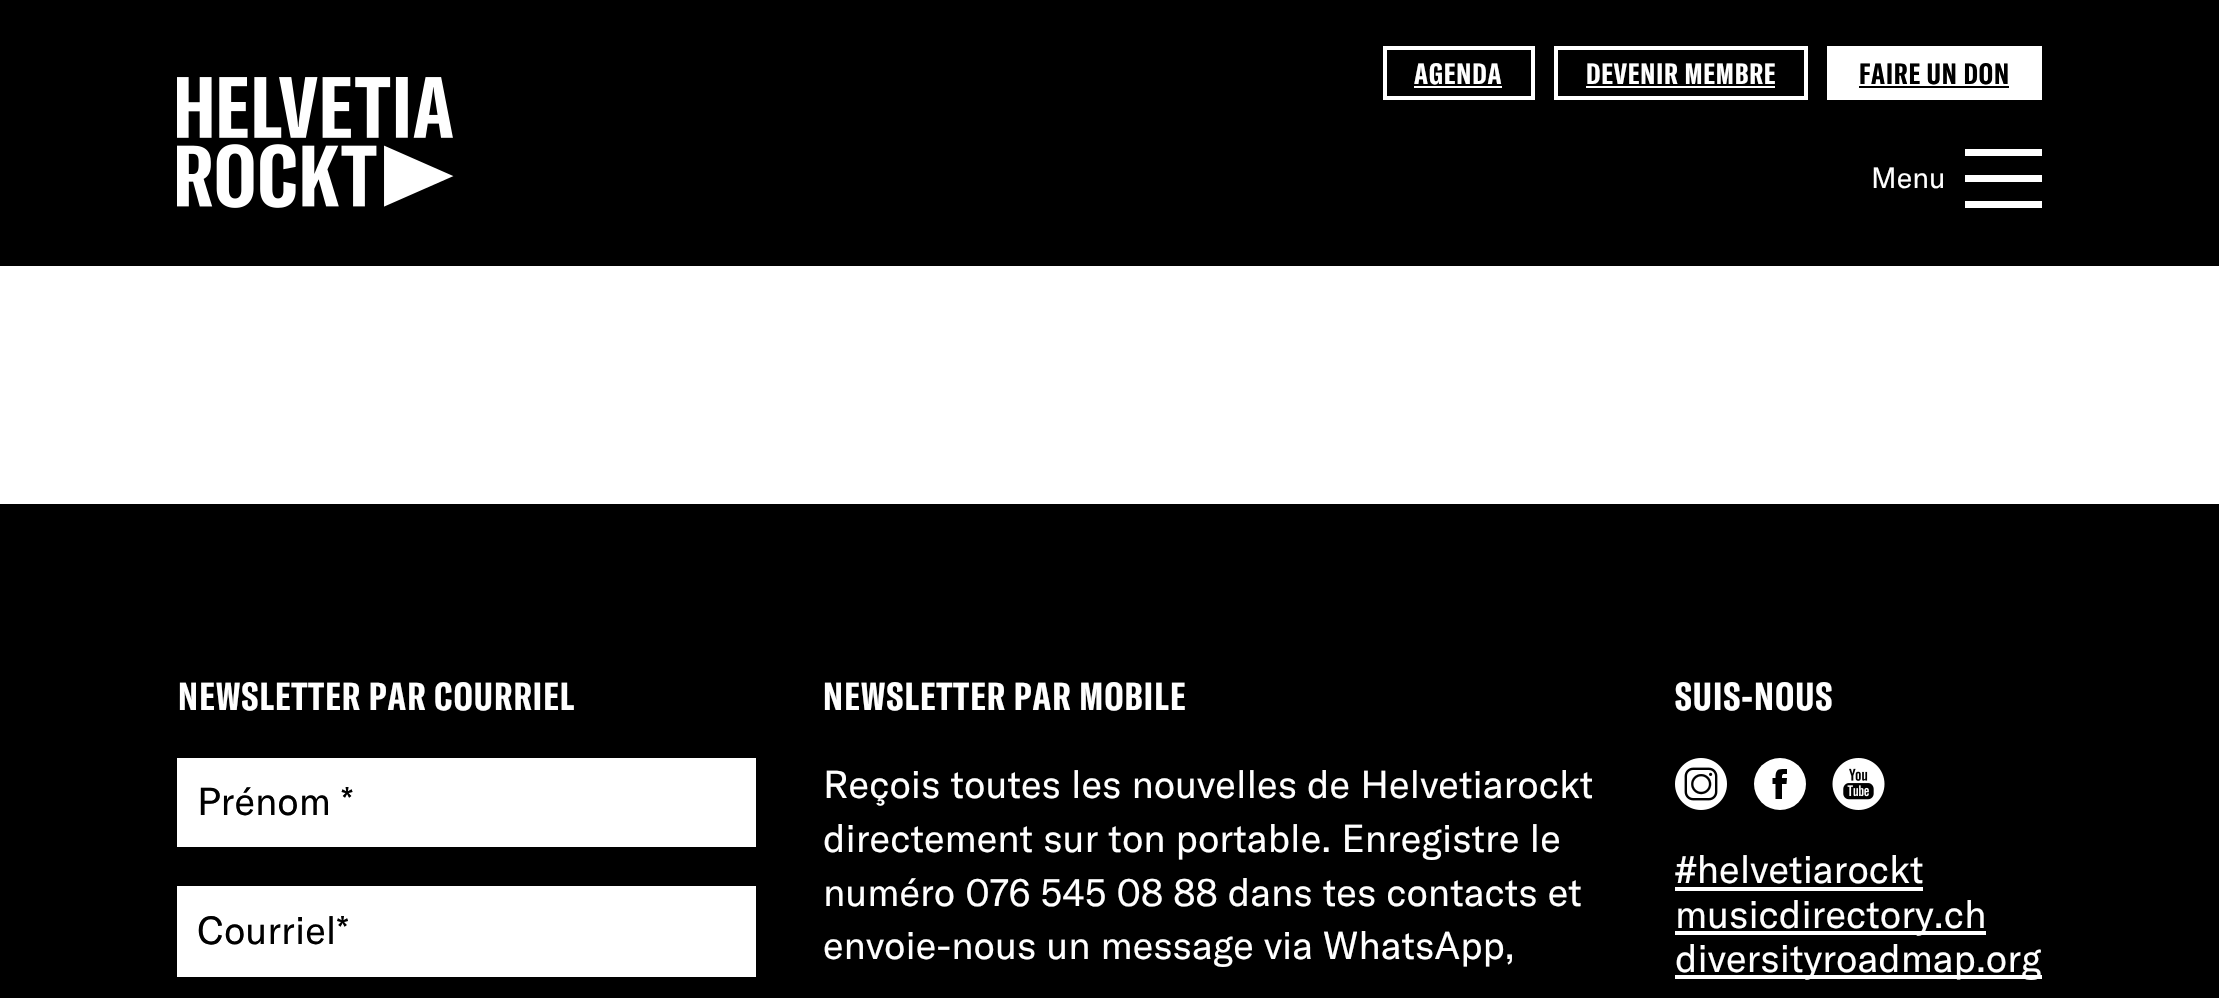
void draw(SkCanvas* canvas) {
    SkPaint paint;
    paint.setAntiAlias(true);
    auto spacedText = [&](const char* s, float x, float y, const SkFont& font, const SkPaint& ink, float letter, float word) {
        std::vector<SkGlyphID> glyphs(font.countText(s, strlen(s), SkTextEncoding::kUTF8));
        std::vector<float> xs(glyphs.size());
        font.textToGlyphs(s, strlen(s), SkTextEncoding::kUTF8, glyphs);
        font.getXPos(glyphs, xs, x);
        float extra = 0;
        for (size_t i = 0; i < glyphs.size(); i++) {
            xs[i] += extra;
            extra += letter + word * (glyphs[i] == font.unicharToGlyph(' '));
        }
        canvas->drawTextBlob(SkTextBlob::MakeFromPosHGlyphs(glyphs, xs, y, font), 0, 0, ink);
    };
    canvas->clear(0xFFFFFFFF);
    paint.setColor(0xFF000000);
    canvas->drawRect(SkRect::MakeXYWH(0, 0, 2219, 266), paint);
    paint.setStyle(SkPaint::kStroke_Style);
    paint.setStrokeWidth(4);
    paint.setColor(0xFFFFFFFF);
    canvas->drawRect(SkRect::MakeXYWH(1385, 48, 148, 50), paint);
    SkFont font1(fontMgr->matchFamilyStyle("GT America", SkFontStyle::Bold()), 29);
    font1.setSubpixel(true);
    paint.setStyle(SkPaint::kFill_Style);
    spacedText("AGENDA", 1414, 84, font1, paint, 0.9f, 0);
    canvas->drawRect(SkRect::MakeXYWH(1414, 86, 88, 2), paint);
    paint.setStyle(SkPaint::kStroke_Style);
    canvas->drawRect(SkRect::MakeXYWH(1556, 48, 250, 50), paint);
    paint.setStyle(SkPaint::kFill_Style);
    spacedText("DEVENIR MEMBRE", 1586, 84, font1, paint, 0.9f, 0);
    canvas->drawRect(SkRect::MakeXYWH(1586, 86, 189, 2), paint);
    canvas->drawRect(SkRect::MakeXYWH(1827, 46, 215, 54), paint);
    paint.setColor(0xFF000000);
    spacedText("FAIRE UN DON", 1859, 84, font1, paint, 0.9f, 0);
    canvas->drawRect(SkRect::MakeXYWH(1859, 86, 150, 2), paint);
    canvas->drawImageRect(SkImages::DeferredFromEncodedData(SkData::MakeFromFileName("img1.png")), SkRect::MakeXYWH(177, 77, 277, 131), SkSamplingOptions());
    SkFont font2(fontMgr->matchFamilyStyle("GT America", SkFontStyle::Normal()), 29);
    font2.setSubpixel(true);
    paint.setColor(0xFFFFFFFF);
    canvas->drawString("Menu", 1871, 188, font2, paint);
    canvas->drawRect(SkRect::MakeXYWH(1965, 149, 77, 7), paint);
    canvas->drawRect(SkRect::MakeXYWH(1965, 175, 77, 7), paint);
    canvas->drawRect(SkRect::MakeXYWH(1965, 201, 77, 7), paint);
    paint.setColor(0xFF000000);
    canvas->drawRect(SkRect::MakeXYWH(0, 504, 2219, 494), paint);
    SkFont font3(fontMgr->matchFamilyStyle("GT America", SkFontStyle::Bold()), 38.5f);
    font3.setSubpixel(true);
    paint.setColor(0xFFFFFFFF);
    spacedText("NEWSLETTER PAR COURRIEL", 178, 710, font3, paint, 1.2f, 0);
    canvas->drawRect(SkRect::MakeXYWH(177, 758, 579, 89), paint);
    SkFont font4(fontMgr->matchFamilyStyle("GT America", SkFontStyle::Normal()), 38.5f);
    font4.setSubpixel(true);
    paint.setColor(0xFF000000);
    canvas->drawString("Prénom *", 197, 815, font4, paint);
    paint.setColor(0xFFFFFFFF);
    canvas->drawRect(SkRect::MakeXYWH(177, 886, 579, 91), paint);
    paint.setColor(0xFF000000);
    canvas->drawString("Courriel*", 197, 944, font4, paint);
    paint.setColor(0xFFFFFFFF);
    spacedText("NEWSLETTER PAR MOBILE", 823, 710, font3, paint, 1.2f, 0);
    canvas->drawString("Reçois toutes les nouvelles de Helvetiarockt", 823, 798, font4, paint);
    canvas->drawString("directement sur ton portable. Enregistre le", 823, 852, font4, paint);
    canvas->drawString("numéro 076 545 08 88 dans tes contacts et", 823, 906, font4, paint);
    canvas->drawString("envoie-nous un message via WhatsApp,", 823, 959, font4, paint);
    spacedText("SUIS-NOUS", 1675, 710, font3, paint, 1.2f, 0);
    canvas->drawImageRect(SkImages::DeferredFromEncodedData(SkData::MakeFromFileName("img2.png")), SkRect::MakeXYWH(1675, 758, 52, 52), SkSamplingOptions());
    canvas->drawCircle(1780, 784, 26, paint);
    paint.setColor(0xFF000000);
    canvas->drawPath(SkPathBuilder().moveTo(1775.5f, 799).lineTo(1782, 799).lineTo(1782, 784).lineTo(1786.5f, 784).lineTo(1787, 778).lineTo(1782, 778).cubicTo(1782, 773.5f, 1782.5f, 774, 1787, 774).lineTo(1787, 769).cubicTo(1778.5f, 769, 1775.5f, 768.5f, 1775.5f, 778).lineTo(1772.5f, 778).lineTo(1772.5f, 784).lineTo(1775.5f, 784).close().detach(), paint);
    canvas->drawImageRect(SkImages::DeferredFromEncodedData(SkData::MakeFromFileName("img3.png")), SkRect::MakeXYWH(1832, 758, 53, 52), SkSamplingOptions());
    paint.setColor(0xFFFFFFFF);
    canvas->drawString("#helvetiarockt", 1675, 883, font4, paint);
    canvas->drawRect(SkRect::MakeXYWH(1675, 887, 248, 4), paint);
    canvas->drawRect(SkRect::MakeXYWH(1675, 931, 311, 4), paint);
    canvas->drawString("musicdirectory.ch", 1675, 928, font4, paint);
    canvas->drawRect(SkRect::MakeXYWH(1675, 975, 367, 4), paint);
    canvas->drawString("diversityroadmap.org", 1675, 972, font4, paint);
}
